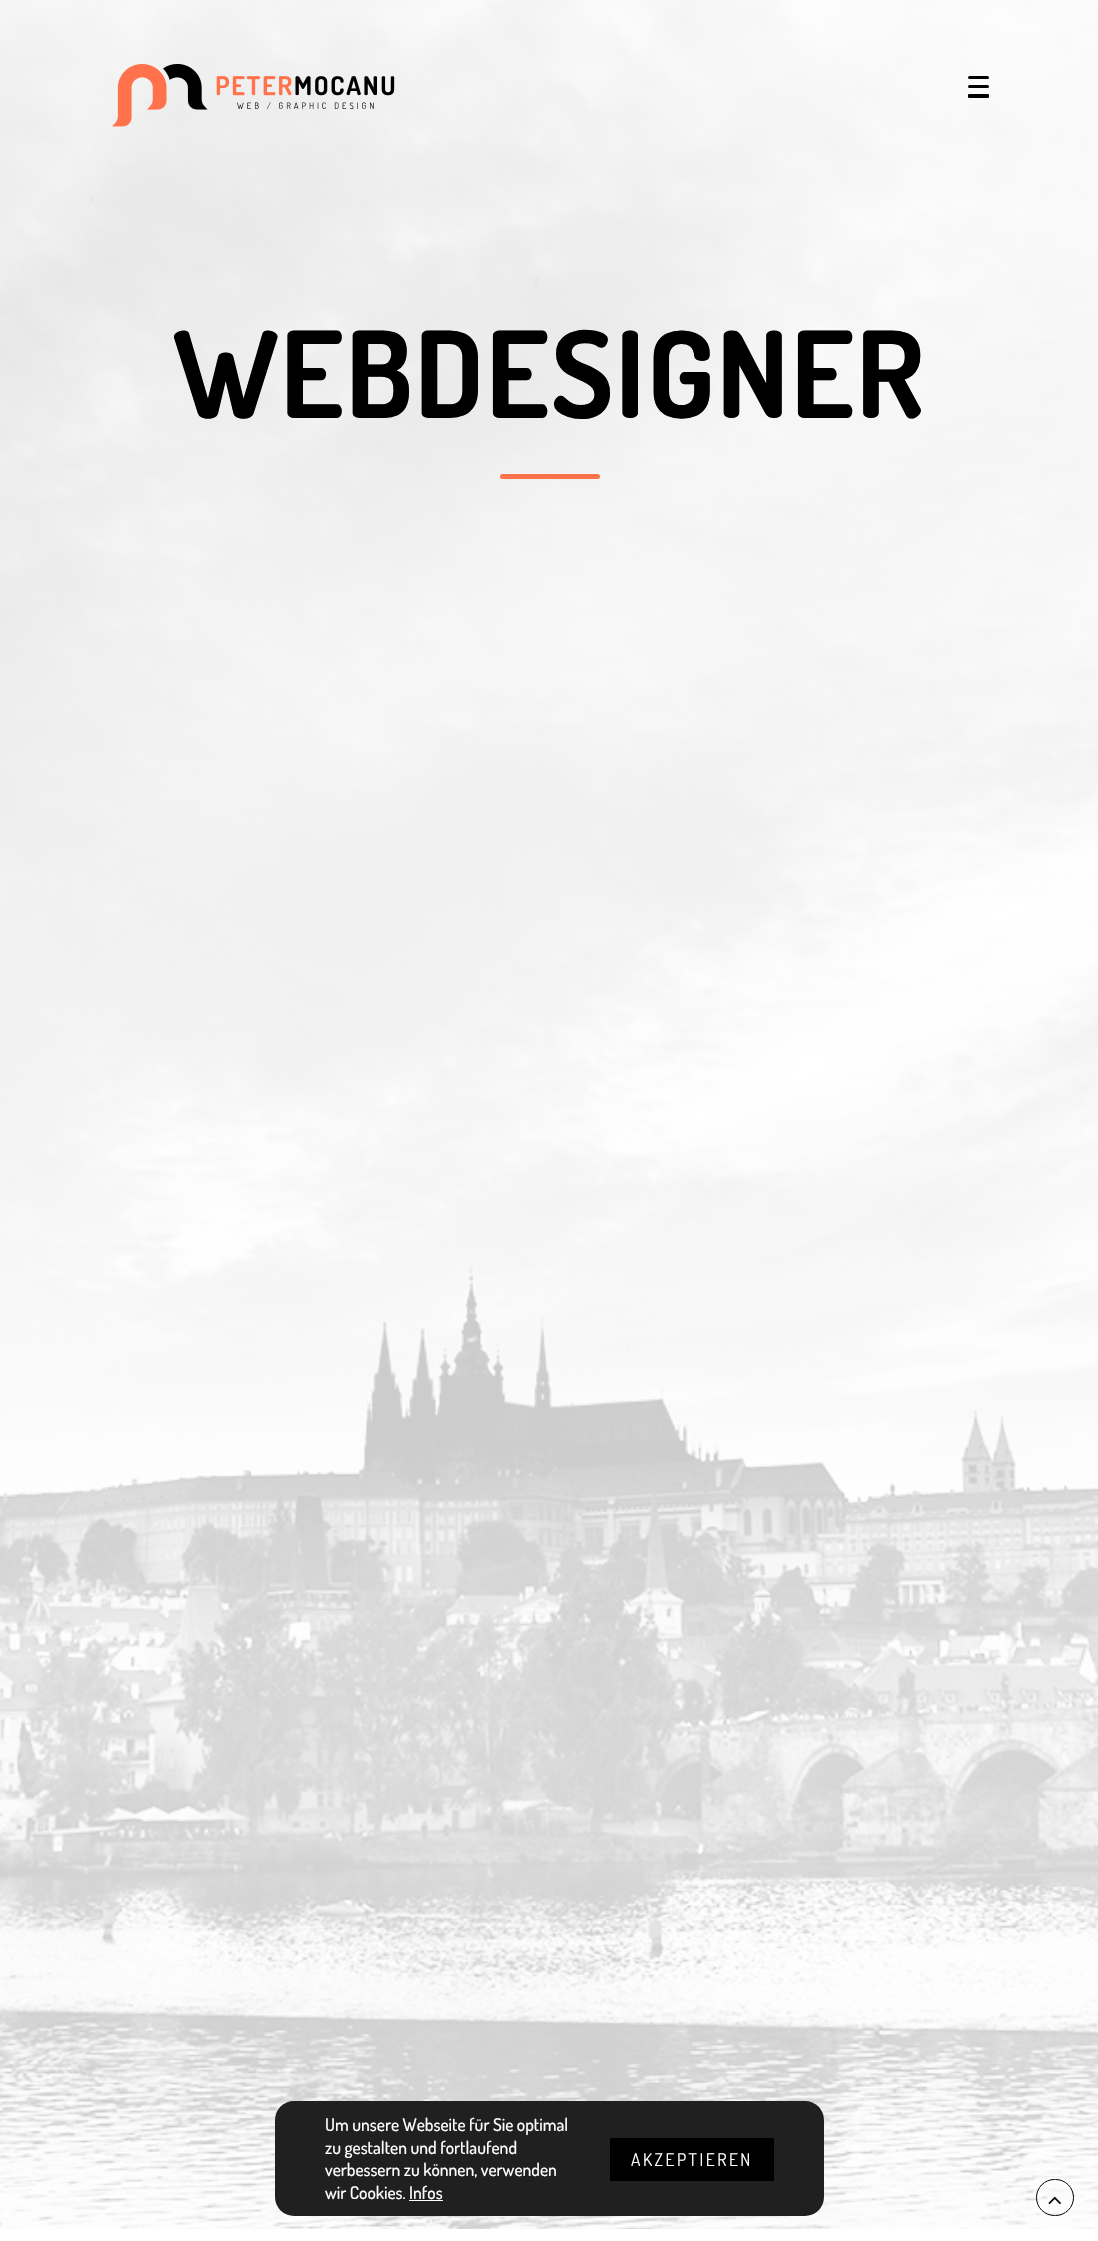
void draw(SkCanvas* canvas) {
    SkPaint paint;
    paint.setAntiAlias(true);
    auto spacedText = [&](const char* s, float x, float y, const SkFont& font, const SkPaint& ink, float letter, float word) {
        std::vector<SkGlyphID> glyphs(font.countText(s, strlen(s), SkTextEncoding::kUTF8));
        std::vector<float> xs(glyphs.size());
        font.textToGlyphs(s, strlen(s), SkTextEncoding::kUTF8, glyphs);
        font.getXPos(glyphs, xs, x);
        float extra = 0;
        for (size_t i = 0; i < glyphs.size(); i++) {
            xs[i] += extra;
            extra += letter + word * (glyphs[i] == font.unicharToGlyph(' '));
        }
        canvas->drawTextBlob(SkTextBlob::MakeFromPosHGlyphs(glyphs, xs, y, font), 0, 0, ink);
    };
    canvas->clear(0xFFFFFFFF);
    canvas->drawImageRect(SkImages::DeferredFromEncodedData(SkData::MakeFromFileName("img2.png")), SkRect::MakeXYWH(0, 0, 1098, 2229), SkSamplingOptions());
    canvas->drawImageRect(SkImages::DeferredFromEncodedData(SkData::MakeFromFileName("img1.png")), SkRect::MakeXYWH(112, 63, 283, 64), SkSamplingOptions());
    paint.setColor(0xFF000000);
    canvas->drawRoundRect(SkRect::MakeXYWH(968, 76, 21, 3), 1.5f, 1.5f, paint);
    canvas->drawRoundRect(SkRect::MakeXYWH(968, 85, 21, 3), 1.5f, 1.5f, paint);
    canvas->drawRoundRect(SkRect::MakeXYWH(968, 94, 21, 4), 1, 1, paint);
    SkFont font1(fontMgr->matchFamilyStyle("Dosis", SkFontStyle::Bold()), 119.75f);
    font1.setSubpixel(true);
    spacedText("WEBDESIGNER", 173, 418, font1, paint, 1.75f, 0);
    paint.setColor(0xFFFF724C);
    canvas->drawRoundRect(SkRect::MakeXYWH(500, 474, 100, 5), 2.5f, 2.5f, paint);
    paint.setColor(0xFF202020);
    canvas->drawRoundRect(SkRect::MakeXYWH(275, 2101, 549, 115), 19, 19, paint);
    SkFont font2(fontMgr->matchFamilyStyle("Dosis", SkFontStyle(500, SkFontStyle::kNormal_Width, SkFontStyle::kUpright_Slant)), 17.5f);
    font2.setSubpixel(true);
    paint.setColor(0xFFFFFFFF);
    canvas->drawString("Um unsere Webseite für Sie optimal", 325, 2131, font2, paint);
    canvas->drawString("zu gestalten und fortlaufend", 325, 2154, font2, paint);
    canvas->drawString("verbessern zu können, verwenden", 325, 2176, font2, paint);
    canvas->drawString("wir Cookies. Infos", 325, 2199, font2, paint);
    canvas->drawRect(SkRect::MakeXYWH(409, 2200, 34, 1), paint);
    paint.setColor(0xFF000000);
    canvas->drawRect(SkRect::MakeXYWH(610, 2138, 164, 43), paint);
    SkFont font3(fontMgr->matchFamilyStyle("Dosis", SkFontStyle::Normal()), 17.5f);
    font3.setSubpixel(true);
    paint.setColor(0xFFFFFFFF);
    spacedText("AKZEPTIEREN", 631, 2166, font3, paint, 2.5f, 0);
    paint.setStyle(SkPaint::kStroke_Style);
    paint.setStrokeWidth(1);
    paint.setColor(0xFF000000);
    canvas->drawRoundRect(SkRect::MakeXYWH(1036.5f, 2179.5f, 37, 36), 18, 18, paint);
    canvas->drawImageRect(SkImages::DeferredFromEncodedData(SkData::MakeFromFileName("img3.png")), SkRect::MakeXYWH(1048, 2196, 13, 9), SkSamplingOptions());
}
